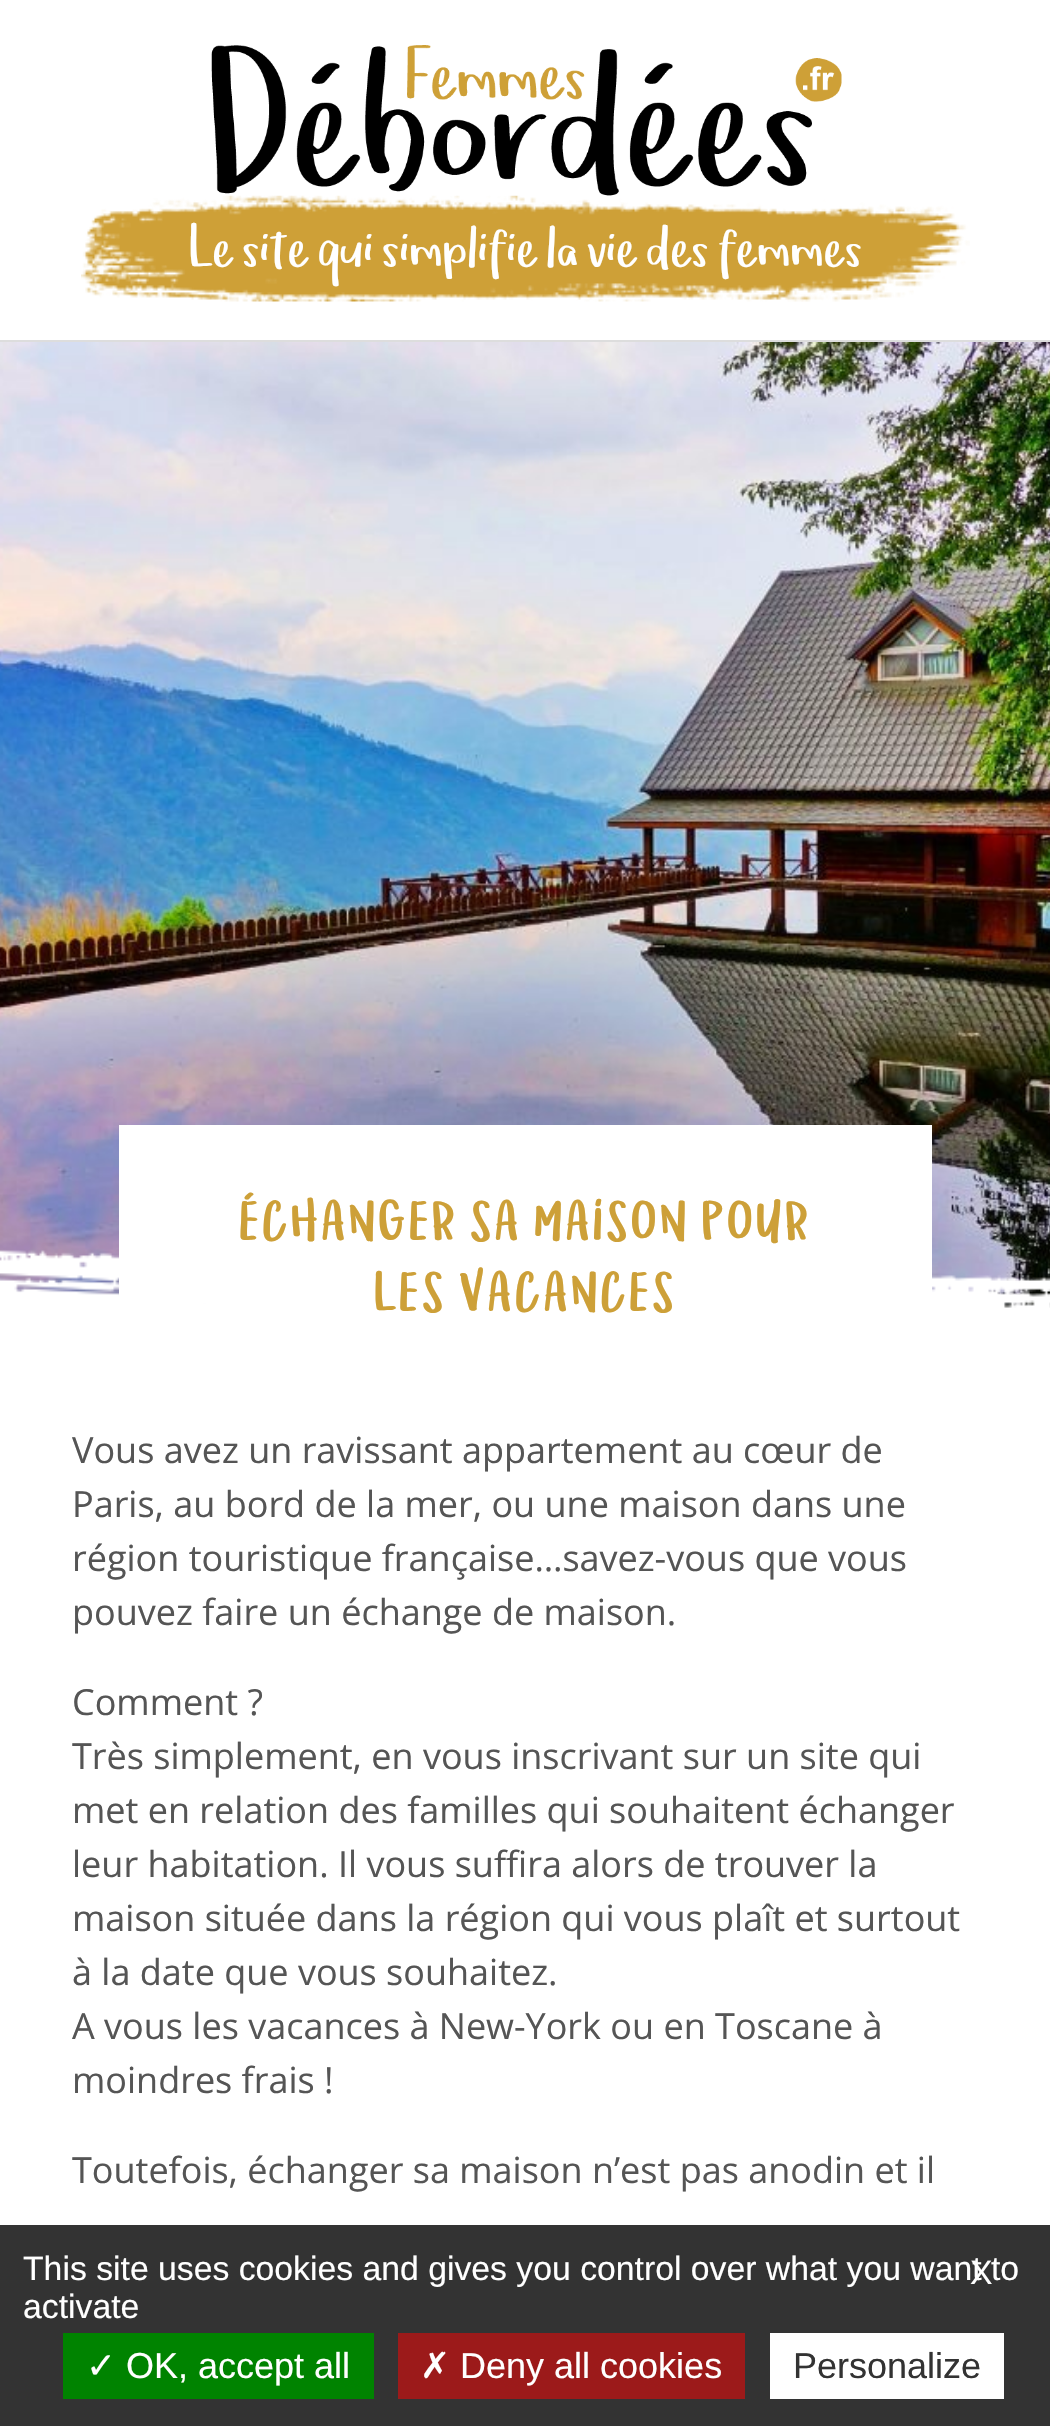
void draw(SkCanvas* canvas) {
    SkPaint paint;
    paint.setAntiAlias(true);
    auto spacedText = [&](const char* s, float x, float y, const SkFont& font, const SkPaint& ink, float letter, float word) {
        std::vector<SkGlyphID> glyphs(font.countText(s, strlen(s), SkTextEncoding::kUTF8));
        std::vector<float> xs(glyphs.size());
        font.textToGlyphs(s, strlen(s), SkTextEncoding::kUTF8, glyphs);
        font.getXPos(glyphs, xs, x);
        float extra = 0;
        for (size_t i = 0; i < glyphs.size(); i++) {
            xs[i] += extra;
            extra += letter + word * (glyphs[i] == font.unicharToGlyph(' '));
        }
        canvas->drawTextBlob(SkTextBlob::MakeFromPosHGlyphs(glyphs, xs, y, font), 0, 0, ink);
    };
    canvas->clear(0xFFFFFFFF);
    canvas->drawImageRect(SkImages::DeferredFromEncodedData(SkData::MakeFromFileName("img1.png")), SkRect::MakeXYWH(211, 45, 631, 151), SkSamplingOptions());
    canvas->drawImageRect(SkImages::DeferredFromEncodedData(SkData::MakeFromFileName("img2.png")), SkRect::MakeXYWH(81, 195, 889, 107), SkSamplingOptions());
    SkFont font1(fontMgr->matchFamilyStyle("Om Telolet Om", SkFontStyle::Normal()), 57.6f);
    font1.setSubpixel(true);
    paint.setColor(0xFFFFFFFF);
    canvas->drawString("Le site qui simplifie la vie des femmes", 189, 266, font1, paint);
    paint.setColor(0xFFDDDDDD);
    canvas->drawRect(SkRect::MakeXYWH(0, 340, 1050, 2), paint);
    canvas->drawImageRect(SkImages::DeferredFromEncodedData(SkData::MakeFromFileName("img3.png")), SkRect::MakeXYWH(0, 342, 1050, 966), SkSamplingOptions());
    canvas->drawImageRect(SkImages::DeferredFromEncodedData(SkData::MakeFromFileName("img4.png")), SkRect::MakeXYWH(0, 1250, 1050, 82), SkSamplingOptions());
    paint.setColor(0xFFFFFFFF);
    canvas->drawRect(SkRect::MakeXYWH(119, 1125, 813, 178), paint);
    SkFont font2(fontMgr->matchFamilyStyle("Om Telolet Om", SkFontStyle::Bold()), 50.4f);
    font2.setSubpixel(true);
    paint.setColor(0xFFCDA038);
    spacedText("ÉCHANGER SA MAISON POUR", 239, 1239, font2, paint, 4.5f, 0);
    spacedText("LES VACANCES", 374, 1310, font2, paint, 4.5f, 0);
    SkFont font3(fontMgr->matchFamilyStyle("Open Sans", SkFontStyle::Normal()), 36);
    font3.setSubpixel(true);
    paint.setColor(0xFF555555);
    canvas->drawString("Vous avez un ravissant appartement au cœur de", 72, 1463, font3, paint);
    canvas->drawString("Paris, au bord de la mer, ou une maison dans une", 72, 1517, font3, paint);
    canvas->drawString("région touristique française…savez-vous que vous", 72, 1571, font3, paint);
    canvas->drawString("pouvez faire un échange de maison.", 72, 1625, font3, paint);
    canvas->drawString("Comment ?", 72, 1715, font3, paint);
    canvas->drawString("Très simplement, en vous inscrivant sur un site qui", 72, 1769, font3, paint);
    canvas->drawString("met en relation des familles qui souhaitent échanger", 72, 1823, font3, paint);
    canvas->drawString("leur habitation. Il vous suffira alors de trouver la", 72, 1877, font3, paint);
    canvas->drawString("maison située dans la région qui vous plaît et surtout", 72, 1931, font3, paint);
    canvas->drawString("à la date que vous souhaitez.", 72, 1985, font3, paint);
    canvas->drawString("A vous les vacances à New-York ou en Toscane à", 72, 2039, font3, paint);
    canvas->drawString("moindres frais !", 72, 2093, font3, paint);
    canvas->drawString("Toutefois, échanger sa maison n’est pas anodin et il", 72, 2183, font3, paint);
    paint.setColor(0xFF333333);
    canvas->drawRect(SkRect::MakeXYWH(0, 2225, 1050, 201), paint);
    SkFont font4(fontMgr->matchFamilyStyle("Liberation Sans", SkFontStyle::Normal()), 33.75f);
    font4.setSubpixel(true);
    paint.setColor(0xFFFFFFFF);
    canvas->drawString("This site uses cookies and gives you control over what you want to", 23, 2280, font4, paint);
    canvas->drawString("activate", 23, 2318, font4, paint);
    canvas->drawString("X", 970, 2284, font4, paint);
    paint.setColor(0xFF008300);
    canvas->drawRect(SkRect::MakeXYWH(63, 2333, 311, 66), paint);
    SkFont font5(fontMgr->matchFamilyStyle("DejaVu Sans", SkFontStyle::Normal()), 36);
    font5.setSubpixel(true);
    paint.setColor(0xFFFFFFFF);
    canvas->drawString("✓", 86, 2378, font5, paint);
    SkFont font6(fontMgr->matchFamilyStyle("Liberation Sans", SkFontStyle::Normal()), 36);
    font6.setSubpixel(true);
    canvas->drawString("OK, accept all", 126, 2378, font6, paint);
    paint.setColor(0xFF9C1A1A);
    canvas->drawRect(SkRect::MakeXYWH(398, 2333, 347, 66), paint);
    paint.setColor(0xFFFFFFFF);
    canvas->drawString("✗", 420, 2378, font5, paint);
    canvas->drawString("Deny all cookies", 460, 2378, font6, paint);
    canvas->drawRect(SkRect::MakeXYWH(770, 2333, 234, 66), paint);
    paint.setColor(0xFF333333);
    canvas->drawString("Personalize", 793, 2378, font6, paint);
}
